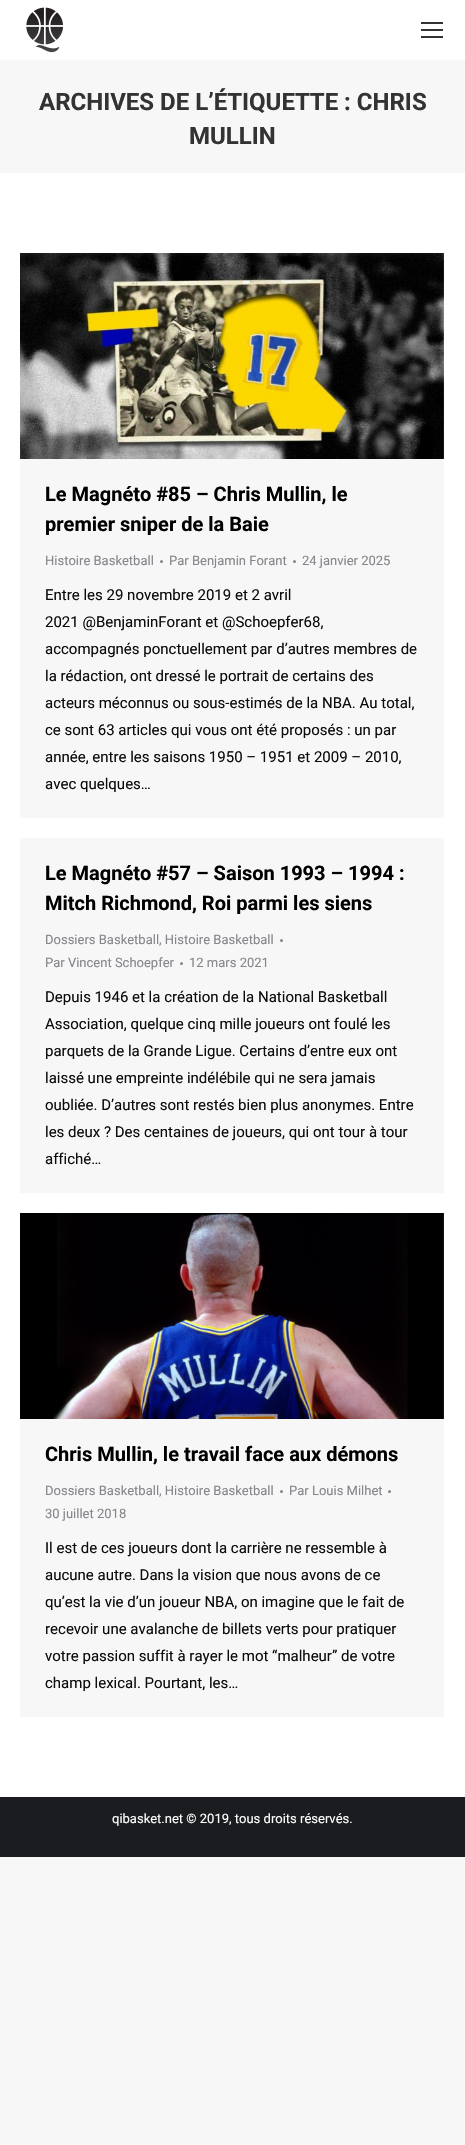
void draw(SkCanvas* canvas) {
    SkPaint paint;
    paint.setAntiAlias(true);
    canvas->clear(0xFFF7F7F7);
    paint.setColor(0xFFFFFFFF);
    canvas->drawRect(SkRect::MakeXYWH(0, 0, 465, 1797), paint);
    canvas->drawImageRect(SkImages::DeferredFromEncodedData(SkData::MakeFromFileName("img1.png")), SkRect::MakeXYWH(26, 7, 38, 46), SkSamplingOptions());
    paint.setColor(0xFF333333);
    canvas->drawRect(SkRect::MakeXYWH(421, 22, 22, 2), paint);
    canvas->drawRect(SkRect::MakeXYWH(421, 29, 22, 2), paint);
    canvas->drawRect(SkRect::MakeXYWH(421, 36, 22, 2), paint);
    paint.setColor(0xFFF7F7F7);
    canvas->drawRect(SkRect::MakeXYWH(0, 60, 465, 113), paint);
    SkFont font1(fontMgr->matchFamilyStyle("Roboto", SkFontStyle::Bold()), 24);
    font1.setSubpixel(true);
    paint.setColor(0xFF333333);
    canvas->drawString("ARCHIVES DE L’ÉTIQUETTE : CHRIS", 39, 110, font1, paint);
    canvas->drawString("MULLIN", 189, 144, font1, paint);
    paint.setColor(0xFFF7F7F7);
    canvas->drawRect(SkRect::MakeXYWH(20, 253, 424, 565), paint);
    canvas->drawImageRect(SkImages::DeferredFromEncodedData(SkData::MakeFromFileName("img2.png")), SkRect::MakeXYWH(20, 253, 424, 206), SkSamplingOptions());
    SkFont font2(fontMgr->matchFamilyStyle("Roboto", SkFontStyle::Bold()), 20);
    font2.setSubpixel(true);
    paint.setColor(0xFF000000);
    canvas->drawString("Le Magnéto #85 – Chris Mullin, le", 45, 501, font2, paint);
    canvas->drawString("premier sniper de la Baie", 45, 531, font2, paint);
    SkFont font3(fontMgr->matchFamilyStyle("Roboto", SkFontStyle::Normal()), 13);
    font3.setSubpixel(true);
    paint.setColor(0xFF85868C);
    canvas->drawString("Histoire Basketball", 45, 565, font3, paint);
    canvas->drawCircle(161.5f, 561.5f, 1.5f, paint);
    canvas->drawString("Par Benjamin Forant", 169, 565, font3, paint);
    canvas->drawCircle(294.5f, 561.5f, 1.5f, paint);
    canvas->drawString("24 janvier 2025", 302, 565, font3, paint);
    SkFont font4(fontMgr->matchFamilyStyle("Roboto", SkFontStyle::Normal()), 15);
    font4.setSubpixel(true);
    paint.setColor(0xFF0C0C0C);
    canvas->drawString("Entre les 29 novembre 2019 et 2 avril", 45, 600, font4, paint);
    canvas->drawString("2021 @BenjaminForant et @Schoepfer68,", 45, 627, font4, paint);
    canvas->drawString("accompagnés ponctuellement par d’autres membres de", 45, 654, font4, paint);
    canvas->drawString("la rédaction, ont dressé le portrait de certains des", 45, 681, font4, paint);
    canvas->drawString("acteurs méconnus ou sous-estimés de la NBA. Au total,", 45, 708, font4, paint);
    canvas->drawString("ce sont 63 articles qui vous ont été proposés : un par", 45, 735, font4, paint);
    canvas->drawString("année, entre les saisons 1950 – 1951 et 2009 – 2010,", 45, 762, font4, paint);
    canvas->drawString("avec quelques…", 45, 789, font4, paint);
    paint.setColor(0xFFF7F7F7);
    canvas->drawRect(SkRect::MakeXYWH(20, 838, 424, 355), paint);
    paint.setColor(0xFF000000);
    canvas->drawString("Le Magnéto #57 – Saison 1993 – 1994 :", 45, 880, font2, paint);
    canvas->drawString("Mitch Richmond, Roi parmi les siens", 45, 910, font2, paint);
    paint.setColor(0xFF85868C);
    canvas->drawString("Dossiers Basketball, Histoire Basketball", 45, 944, font3, paint);
    canvas->drawCircle(281.5f, 940.5f, 1.5f, paint);
    canvas->drawString("Par Vincent Schoepfer", 45, 967, font3, paint);
    canvas->drawCircle(181.5f, 963.5f, 1.5f, paint);
    canvas->drawString("12 mars 2021", 189, 967, font3, paint);
    paint.setColor(0xFF0C0C0C);
    canvas->drawString("Depuis 1946 et la création de la National Basketball", 45, 1002, font4, paint);
    canvas->drawString("Association, quelque cinq mille joueurs ont foulé les", 45, 1029, font4, paint);
    canvas->drawString("parquets de la Grande Ligue. Certains d’entre eux ont", 45, 1056, font4, paint);
    canvas->drawString("laissé une empreinte indélébile qui ne sera jamais", 45, 1083, font4, paint);
    canvas->drawString("oubliée. D’autres sont restés bien plus anonymes. Entre", 45, 1110, font4, paint);
    canvas->drawString("les deux ? Des centaines de joueurs, qui ont tour à tour", 45, 1137, font4, paint);
    canvas->drawString("affiché…", 45, 1164, font4, paint);
    paint.setColor(0xFFF7F7F7);
    canvas->drawRect(SkRect::MakeXYWH(20, 1213, 424, 504), paint);
    canvas->drawImageRect(SkImages::DeferredFromEncodedData(SkData::MakeFromFileName("img3.png")), SkRect::MakeXYWH(20, 1213, 424, 206), SkSamplingOptions());
    paint.setColor(0xFF000000);
    canvas->drawString("Chris Mullin, le travail face aux démons", 45, 1461, font2, paint);
    paint.setColor(0xFF85868C);
    canvas->drawString("Dossiers Basketball, Histoire Basketball", 45, 1495, font3, paint);
    canvas->drawCircle(281.5f, 1491.5f, 1.5f, paint);
    canvas->drawString("Par Louis Milhet", 289, 1495, font3, paint);
    canvas->drawCircle(389.5f, 1491.5f, 1.5f, paint);
    canvas->drawString("30 juillet 2018", 45, 1518, font3, paint);
    paint.setColor(0xFF0C0C0C);
    canvas->drawString("Il est de ces joueurs dont la carrière ne ressemble à", 45, 1553, font4, paint);
    canvas->drawString("aucune autre. Dans la vision que nous avons de ce", 45, 1580, font4, paint);
    canvas->drawString("qu’est la vie d’un joueur NBA, on imagine que le fait de", 45, 1607, font4, paint);
    canvas->drawString("recevoir une avalanche de billets verts pour pratiquer", 45, 1634, font4, paint);
    canvas->drawString("votre passion suffit à rayer le mot “malheur” de votre", 45, 1661, font4, paint);
    canvas->drawString("champ lexical. Pourtant, les…", 45, 1688, font4, paint);
    paint.setColor(0xFF1A1C20);
    canvas->drawRect(SkRect::MakeXYWH(0, 1797, 465, 60), paint);
    paint.setColor(0xFFFFFFFF);
    canvas->drawString("qibasket.net © 2019, tous droits réservés.", 112, 1823, font3, paint);
}
